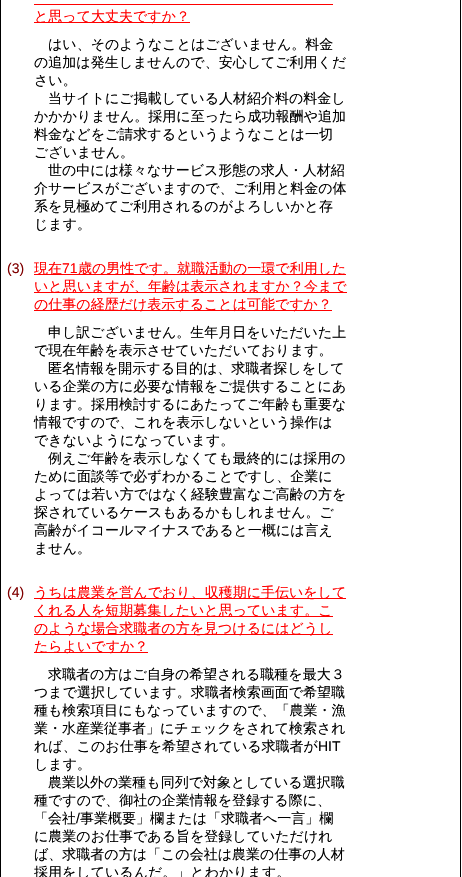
void draw(SkCanvas* canvas) {
    SkPaint paint;
    paint.setAntiAlias(true);
    canvas->clear(0xFFFFFFFF);
    paint.setColor(0xFF000000);
    canvas->drawRect(SkRect::MakeXYWH(0, 0, 1, 877), paint);
    paint.setColor(0xFFFF0000);
    canvas->drawRect(SkRect::MakeXYWH(34, 22, 156, 1), paint);
    SkFont font1(fontMgr->matchFamilyStyle("WenQuanYi Zen Hei", SkFontStyle(500, SkFontStyle::kNormal_Width, SkFontStyle::kUpright_Slant)), 14);
    font1.setSubpixel(true);
    canvas->drawString("と思って大丈夫ですか？", 34, 21, font1, paint);
    canvas->drawRect(SkRect::MakeXYWH(34, 4, 299, 1), paint);
    paint.setColor(0xFF000000);
    canvas->drawString("はい、そのようなことはございません。料金", 48, 49, font1, paint);
    canvas->drawString("の追加は発生しませんので、安心してご利用くだ", 34, 67, font1, paint);
    canvas->drawString("さい。", 34, 85, font1, paint);
    canvas->drawString("当サイトにご掲載している人材紹介料の料金し", 48, 103, font1, paint);
    canvas->drawString("かかかりません。採用に至ったら成功報酬や追加", 34, 121, font1, paint);
    canvas->drawString("料金などをご請求するというようなことは一切", 34, 139, font1, paint);
    canvas->drawString("ございません。", 34, 157, font1, paint);
    canvas->drawString("世の中には様々なサービス形態の求人・人材紹", 48, 175, font1, paint);
    canvas->drawString("介サービスがございますので、ご利用と料金の体", 34, 193, font1, paint);
    canvas->drawString("系を見極めてご利用されるのがよろしいかと存", 34, 211, font1, paint);
    canvas->drawString("じます。", 34, 229, font1, paint);
    SkFont font2(fontMgr->matchFamilyStyle("Liberation Sans", SkFontStyle::Normal()), 14);
    font2.setSubpixel(true);
    paint.setColor(0xFF800000);
    canvas->drawString("(3)", 7, 273, font2, paint);
    paint.setColor(0xFFFF0000);
    canvas->drawRect(SkRect::MakeXYWH(34, 274, 312, 1), paint);
    canvas->drawString("現在", 34, 273, font1, paint);
    canvas->drawString("71", 62, 273, font2, paint);
    canvas->drawString("歳の男性です。就職活動の一環で利用した", 78, 273, font1, paint);
    canvas->drawRect(SkRect::MakeXYWH(34, 292, 313, 1), paint);
    canvas->drawString("いと思いますが、年齢は表示されますか？今まで", 34, 291, font1, paint);
    canvas->drawRect(SkRect::MakeXYWH(34, 310, 298, 1), paint);
    canvas->drawString("の仕事の経歴だけ表示することは可能ですか？", 34, 309, font1, paint);
    paint.setColor(0xFF000000);
    canvas->drawString("申し訳ございません。生年月日をいただいた上", 48, 337, font1, paint);
    canvas->drawString("で現在年齢を表示させていただいております。", 34, 355, font1, paint);
    canvas->drawString("匿名情報を開示する目的は、求職者探しをして", 48, 373, font1, paint);
    canvas->drawString("いる企業の方に必要な情報をご提供することにあ", 34, 391, font1, paint);
    canvas->drawString("ります。採用検討するにあたってご年齢も重要な", 34, 409, font1, paint);
    canvas->drawString("情報ですので、これを表示しないという操作は", 34, 427, font1, paint);
    canvas->drawString("できないようになっています。", 34, 445, font1, paint);
    canvas->drawString("例えご年齢を表示しなくても最終的には採用の", 48, 463, font1, paint);
    canvas->drawString("ために面談等で必ずわかることですし、企業に", 34, 481, font1, paint);
    canvas->drawString("よっては若い方ではなく経験豊富なご高齢の方を", 34, 499, font1, paint);
    canvas->drawString("探されているケースもあるかもしれません。ご", 34, 517, font1, paint);
    canvas->drawString("高齢がイコールマイナスであると一概には言え", 34, 535, font1, paint);
    canvas->drawString("ません。", 34, 553, font1, paint);
    paint.setColor(0xFF800000);
    canvas->drawString("(4)", 7, 597, font2, paint);
    paint.setColor(0xFFFF0000);
    canvas->drawRect(SkRect::MakeXYWH(34, 598, 312, 1), paint);
    canvas->drawString("うちは農業を営んでおり、収穫期に手伝いをして", 34, 597, font1, paint);
    canvas->drawRect(SkRect::MakeXYWH(34, 616, 299, 1), paint);
    canvas->drawString("くれる人を短期募集したいと思っています。こ", 34, 615, font1, paint);
    canvas->drawRect(SkRect::MakeXYWH(34, 634, 299, 1), paint);
    canvas->drawString("のような場合求職者の方を見つけるにはどうし", 34, 633, font1, paint);
    canvas->drawRect(SkRect::MakeXYWH(34, 652, 114, 1), paint);
    canvas->drawString("たらよいですか？", 34, 651, font1, paint);
    paint.setColor(0xFF000000);
    canvas->drawString("求職者の方はご自身の希望される職種を最大３", 48, 679, font1, paint);
    canvas->drawString("つまで選択しています。求職者検索画面で希望職", 34, 697, font1, paint);
    canvas->drawString("種も検索項目にもなっていますので、「農業・漁", 34, 715, font1, paint);
    canvas->drawString("業・水産業従事者」にチェックをされて検索され", 34, 733, font1, paint);
    canvas->drawString("れば、このお仕事を希望されている求職者が", 34, 751, font1, paint);
    canvas->drawString("HIT", 318, 751, font2, paint);
    canvas->drawString("します。", 34, 769, font1, paint);
    canvas->drawString("農業以外の業種も同列で対象としている選択職", 48, 787, font1, paint);
    canvas->drawString("種ですので、御社の企業情報を登録する際に、", 34, 805, font1, paint);
    canvas->drawString("「会社", 34, 823, font1, paint);
    canvas->drawString("/", 76, 823, font2, paint);
    canvas->drawString("事業概要」欄または「求職者へ一言」欄", 80, 823, font1, paint);
    canvas->drawString("に農業のお仕事である旨を登録していただけれ", 34, 841, font1, paint);
    canvas->drawString("ば、求職者の方は「この会社は農業の仕事の人材", 34, 859, font1, paint);
    canvas->drawString("採用をしているんだ。」とわかります。", 34, 877, font1, paint);
    canvas->drawRect(SkRect::MakeXYWH(460, 0, 1, 877), paint);
}
